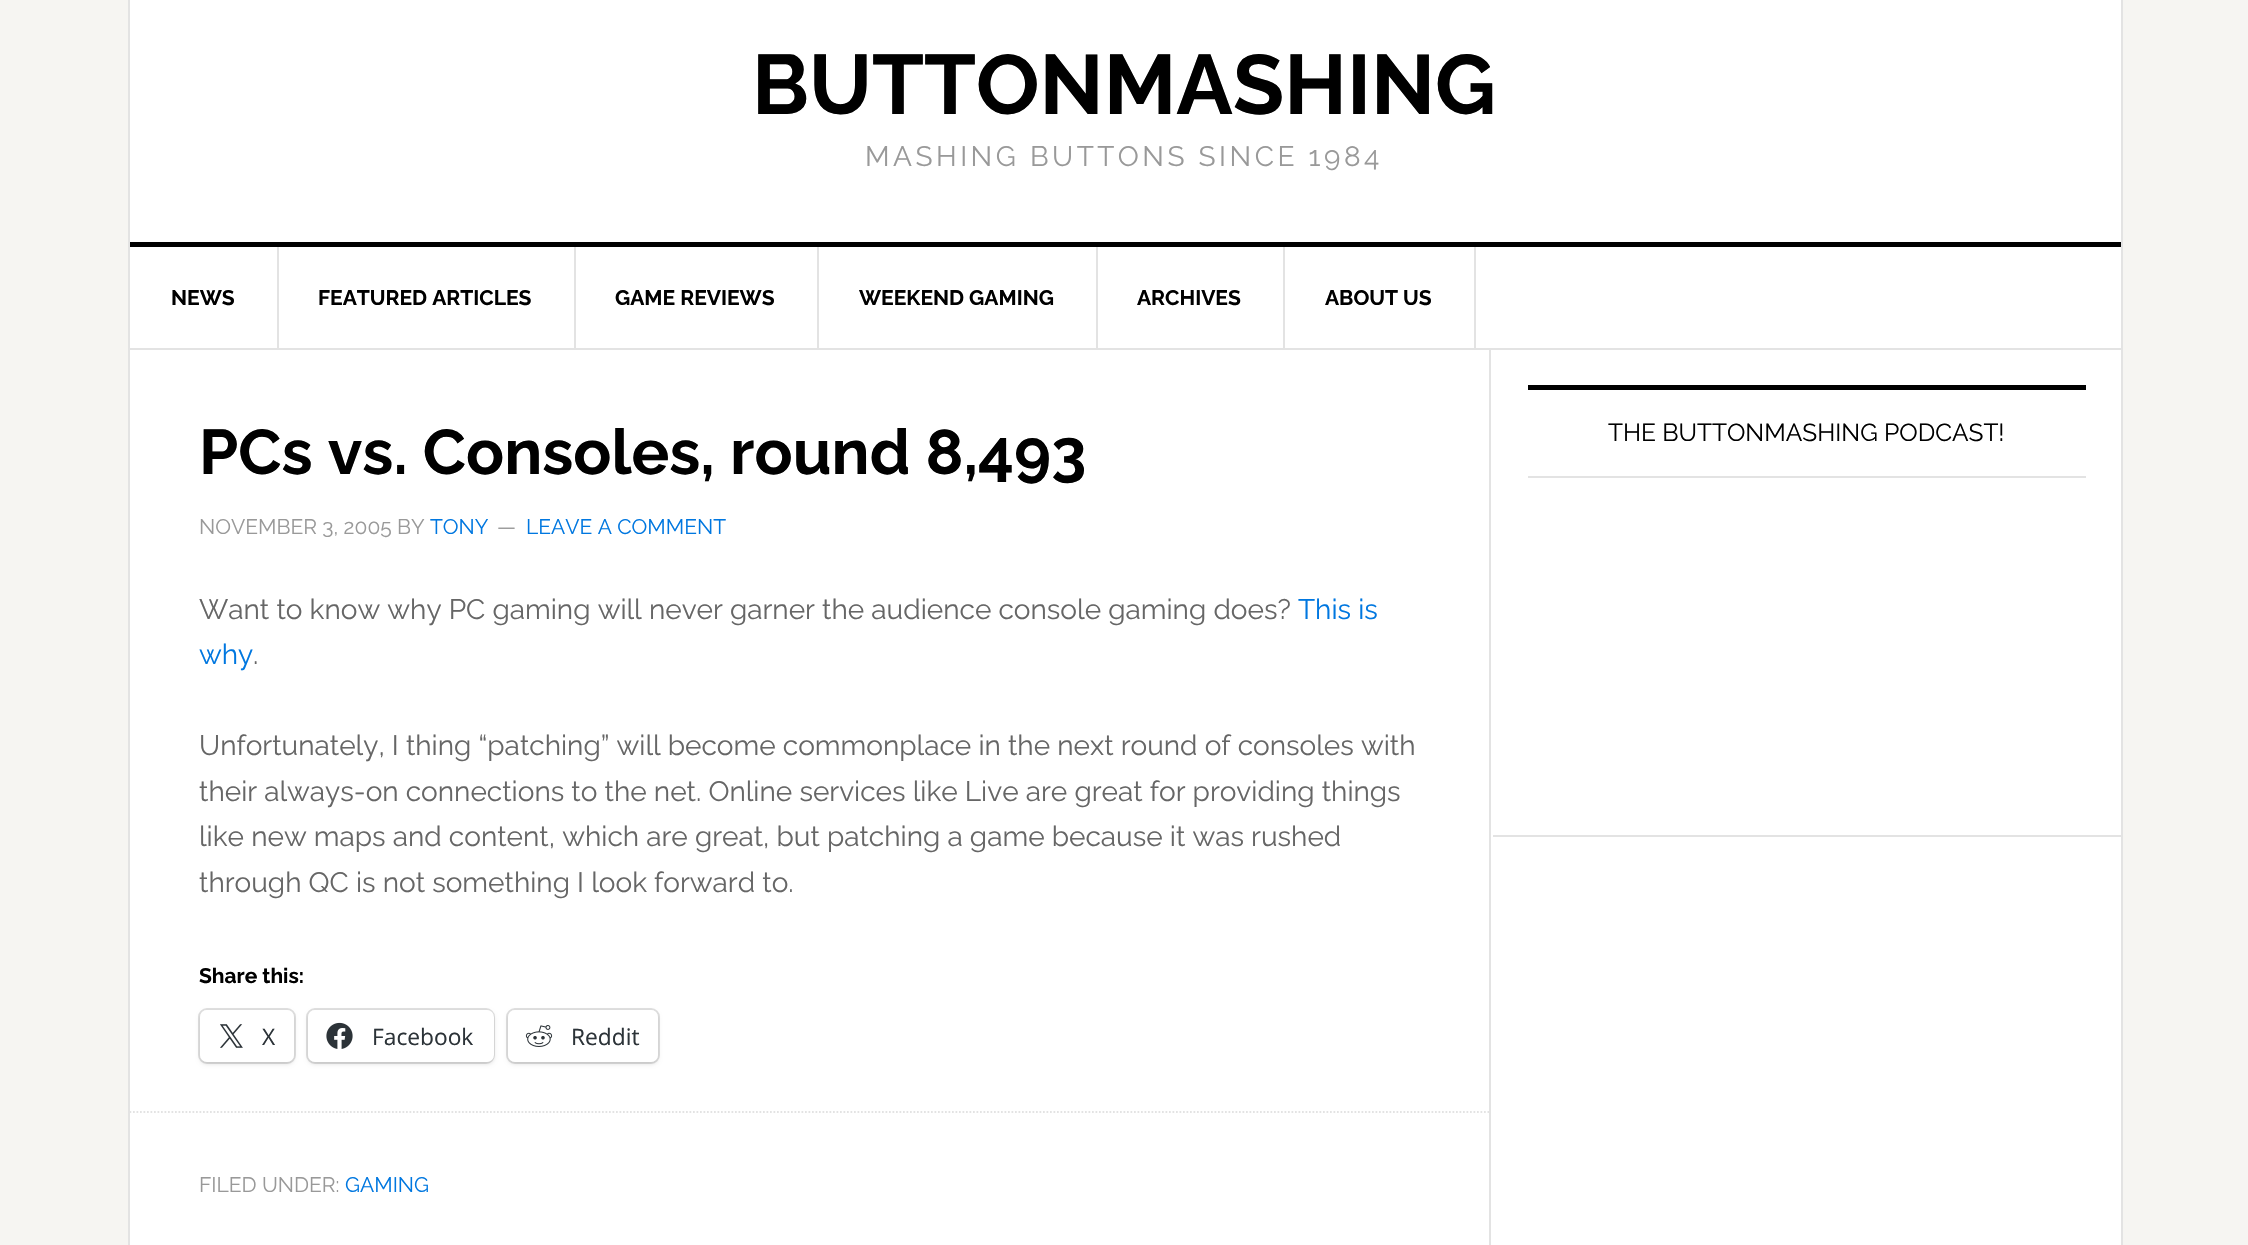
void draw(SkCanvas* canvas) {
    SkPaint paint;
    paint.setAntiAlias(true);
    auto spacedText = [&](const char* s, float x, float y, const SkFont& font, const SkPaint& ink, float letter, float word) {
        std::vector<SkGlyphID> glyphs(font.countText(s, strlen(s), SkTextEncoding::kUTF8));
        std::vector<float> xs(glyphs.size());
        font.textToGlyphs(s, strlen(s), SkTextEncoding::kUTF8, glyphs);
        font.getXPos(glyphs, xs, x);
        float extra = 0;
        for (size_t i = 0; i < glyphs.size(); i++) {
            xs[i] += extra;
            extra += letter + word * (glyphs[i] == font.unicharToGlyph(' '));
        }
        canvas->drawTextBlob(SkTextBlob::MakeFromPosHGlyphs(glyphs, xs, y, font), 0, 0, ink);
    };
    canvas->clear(0xFFF6F5F2);
    paint.setColor(0xFFFFFFFF);
    canvas->drawRect(SkRect::MakeXYWH(129, -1, 1993, 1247), paint);
    paint.setStyle(SkPaint::kStroke_Style);
    paint.setStrokeWidth(2);
    paint.setColor(0xFFE3E3E3);
    canvas->drawRect(SkRect::MakeXYWH(129, -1, 1993, 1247), paint);
    paint.setStyle(SkPaint::kFill_Style);
    paint.setColor(0xFF000000);
    canvas->drawRect(SkRect::MakeXYWH(130, 242, 1991, 5), paint);
    SkFont font1(fontMgr->matchFamilyStyle("Raleway", SkFontStyle::Bold()), 84);
    font1.setSubpixel(true);
    canvas->drawString("BUTTONMASHING", 752, 114, font1, paint);
    SkFont font2(fontMgr->matchFamilyStyle("Raleway", SkFontStyle::Normal()), 28);
    font2.setSubpixel(true);
    paint.setColor(0xFF999999);
    spacedText("MASHING BUTTONS SINCE 1984", 865, 166, font2, paint, 3.5f, 0);
    paint.setColor(0xFFE3E3E3);
    canvas->drawRect(SkRect::MakeXYWH(130, 348, 1991, 2), paint);
    canvas->drawRect(SkRect::MakeXYWH(277, 247, 2, 101), paint);
    SkFont font3(fontMgr->matchFamilyStyle("Raleway", SkFontStyle::Bold()), 21);
    font3.setSubpixel(true);
    paint.setColor(0xFF000000);
    canvas->drawString("NEWS", 171, 305, font3, paint);
    paint.setColor(0xFFE3E3E3);
    canvas->drawRect(SkRect::MakeXYWH(574, 247, 2, 101), paint);
    paint.setColor(0xFF000000);
    canvas->drawString("FEATURED ARTICLES", 318, 305, font3, paint);
    paint.setColor(0xFFE3E3E3);
    canvas->drawRect(SkRect::MakeXYWH(817, 247, 2, 101), paint);
    paint.setColor(0xFF000000);
    canvas->drawString("GAME REVIEWS", 615, 305, font3, paint);
    paint.setColor(0xFFE3E3E3);
    canvas->drawRect(SkRect::MakeXYWH(1096, 247, 2, 101), paint);
    paint.setColor(0xFF000000);
    canvas->drawString("WEEKEND GAMING", 859, 305, font3, paint);
    paint.setColor(0xFFE3E3E3);
    canvas->drawRect(SkRect::MakeXYWH(1283, 247, 2, 101), paint);
    paint.setColor(0xFF000000);
    canvas->drawString("ARCHIVES", 1137, 305, font3, paint);
    paint.setColor(0xFFE3E3E3);
    canvas->drawRect(SkRect::MakeXYWH(1474, 247, 2, 101), paint);
    paint.setColor(0xFF000000);
    canvas->drawString("ABOUT US", 1325, 305, font3, paint);
    paint.setColor(0xFFE3E3E3);
    canvas->drawRect(SkRect::MakeXYWH(1489, 350, 2, 895), paint);
    SkFont font4(fontMgr->matchFamilyStyle("Raleway", SkFontStyle::Bold()), 63);
    font4.setSubpixel(true);
    paint.setColor(0xFF000000);
    canvas->drawString("PCs vs. Consoles, round 8,493", 199, 474, font4, paint);
    SkFont font5(fontMgr->matchFamilyStyle("Raleway", SkFontStyle::Normal()), 21);
    font5.setSubpixel(true);
    paint.setColor(0xFF999999);
    canvas->drawString("NOVEMBER 3, 2005 BY", 199, 534, font5, paint);
    paint.setColor(0xFF0077E0);
    canvas->drawString("TONY", 430, 534, font5, paint);
    paint.setColor(0xFF999999);
    canvas->drawString("—", 497, 534, font5, paint);
    paint.setColor(0xFF0077E0);
    canvas->drawString("LEAVE A COMMENT", 526, 534, font5, paint);
    paint.setColor(0xFF666666);
    canvas->drawString("Want to know why PC gaming will never garner the audience console gaming does?", 199, 619, font2, paint);
    paint.setColor(0xFF0077E0);
    canvas->drawString("This is", 1298, 619, font2, paint);
    canvas->drawString("why", 199, 664, font2, paint);
    paint.setColor(0xFF666666);
    canvas->drawString(".", 253, 664, font2, paint);
    canvas->drawString("Unfortunately, I thing “patching” will become commonplace in the next round of consoles with", 199, 755, font2, paint);
    canvas->drawString("their always-on connections to the net. Online services like Live are great for providing things", 199, 801, font2, paint);
    canvas->drawString("like new maps and content, which are great, but patching a game because it was rushed", 199, 846, font2, paint);
    canvas->drawString("through QC is not something I look forward to.", 199, 892, font2, paint);
    paint.setColor(0xFF000000);
    canvas->drawString("Share this:", 199, 983, font3, paint);
    paint.setStyle(SkPaint::kStroke_Style);
    paint.setColor(0xFFE0E0E0);
    canvas->drawRoundRect(SkRect::MakeXYWH(199, 1009, 96, 54), 8, 8, paint);
    paint.setStyle(SkPaint::kFill_Style);
    paint.setColor(0x1F000000);
    paint.setMaskFilter(SkMaskFilter::MakeBlur(kNormal_SkBlurStyle, 2));
    canvas->drawRoundRect(SkRect::MakeXYWH(200, 1012, 94, 52), 7, 7, paint);
    paint.setMaskFilter(nullptr);
    paint.setColor(0xFFFFFFFF);
    canvas->drawRoundRect(SkRect::MakeXYWH(200, 1010, 94, 52), 7, 7, paint);
    canvas->drawImageRect(SkImages::DeferredFromEncodedData(SkData::MakeFromFileName("img1.png")), SkRect::MakeXYWH(220, 1024, 23, 24), SkSamplingOptions());
    SkFont font6(fontMgr->matchFamilyStyle("Open Sans", SkFontStyle::Normal()), 22.75f);
    font6.setSubpixel(true);
    paint.setColor(0xFF2C3338);
    canvas->drawString("X", 262, 1045, font6, paint);
    paint.setStyle(SkPaint::kStroke_Style);
    paint.setColor(0xFFE0E0E0);
    canvas->drawRoundRect(SkRect::MakeXYWH(307, 1009, 187, 54), 8, 8, paint);
    paint.setStyle(SkPaint::kFill_Style);
    paint.setColor(0x1F000000);
    paint.setMaskFilter(SkMaskFilter::MakeBlur(kNormal_SkBlurStyle, 2));
    canvas->drawRoundRect(SkRect::MakeXYWH(308, 1012, 186, 52), 7, 7, paint);
    paint.setMaskFilter(nullptr);
    paint.setColor(0xFFFFFFFF);
    canvas->drawRoundRect(SkRect::MakeXYWH(308, 1010, 186, 52), 7, 7, paint);
    canvas->drawImageRect(SkImages::DeferredFromEncodedData(SkData::MakeFromFileName("img2.png")), SkRect::MakeXYWH(326, 1022, 27, 27), SkSamplingOptions());
    paint.setColor(0xFF2C3338);
    canvas->drawString("Facebook", 372, 1045, font6, paint);
    paint.setStyle(SkPaint::kStroke_Style);
    paint.setColor(0xFFE0E0E0);
    canvas->drawRoundRect(SkRect::MakeXYWH(507, 1009, 152, 54), 8, 8, paint);
    paint.setStyle(SkPaint::kFill_Style);
    paint.setColor(0x1F000000);
    paint.setMaskFilter(SkMaskFilter::MakeBlur(kNormal_SkBlurStyle, 2));
    canvas->drawRoundRect(SkRect::MakeXYWH(508, 1012, 150, 52), 7, 7, paint);
    paint.setMaskFilter(nullptr);
    paint.setColor(0xFFFFFFFF);
    canvas->drawRoundRect(SkRect::MakeXYWH(508, 1010, 150, 52), 7, 7, paint);
    canvas->drawImageRect(SkImages::DeferredFromEncodedData(SkData::MakeFromFileName("img3.png")), SkRect::MakeXYWH(525, 1025, 28, 22), SkSamplingOptions());
    paint.setColor(0xFF2C3338);
    canvas->drawString("Reddit", 571, 1045, font6, paint);
    paint.setStyle(SkPaint::kStroke_Style);
    paint.setStrokeWidth(1.8f);
    paint.setColor(0xFFE3E3E3);
    paint.setPathEffect(SkDashPathEffect::Make({{1.75f, 1.75f}}, 0));
    canvas->drawPath(SkPathBuilder().moveTo(129.5f, 1112).lineTo(1489, 1112).detach(), paint);
    paint.setPathEffect(nullptr);
    paint.setStyle(SkPaint::kFill_Style);
    paint.setColor(0xFF999999);
    canvas->drawString("FILED UNDER:", 199, 1192, font5, paint);
    paint.setColor(0xFF0077E0);
    canvas->drawString("GAMING", 345, 1192, font5, paint);
    paint.setColor(0xFFE3E3E3);
    canvas->drawRect(SkRect::MakeXYWH(1493, 835, 628, 2), paint);
    paint.setColor(0xFF000000);
    canvas->drawRect(SkRect::MakeXYWH(1528, 385, 558, 5), paint);
    paint.setColor(0xFFE3E3E3);
    canvas->drawRect(SkRect::MakeXYWH(1528, 476, 558, 2), paint);
    SkFont font7(fontMgr->matchFamilyStyle("Raleway", SkFontStyle::Normal()), 24.5f);
    font7.setSubpixel(true);
    paint.setColor(0xFF000000);
    canvas->drawString("THE BUTTONMASHING PODCAST!", 1608, 441, font7, paint);
}
